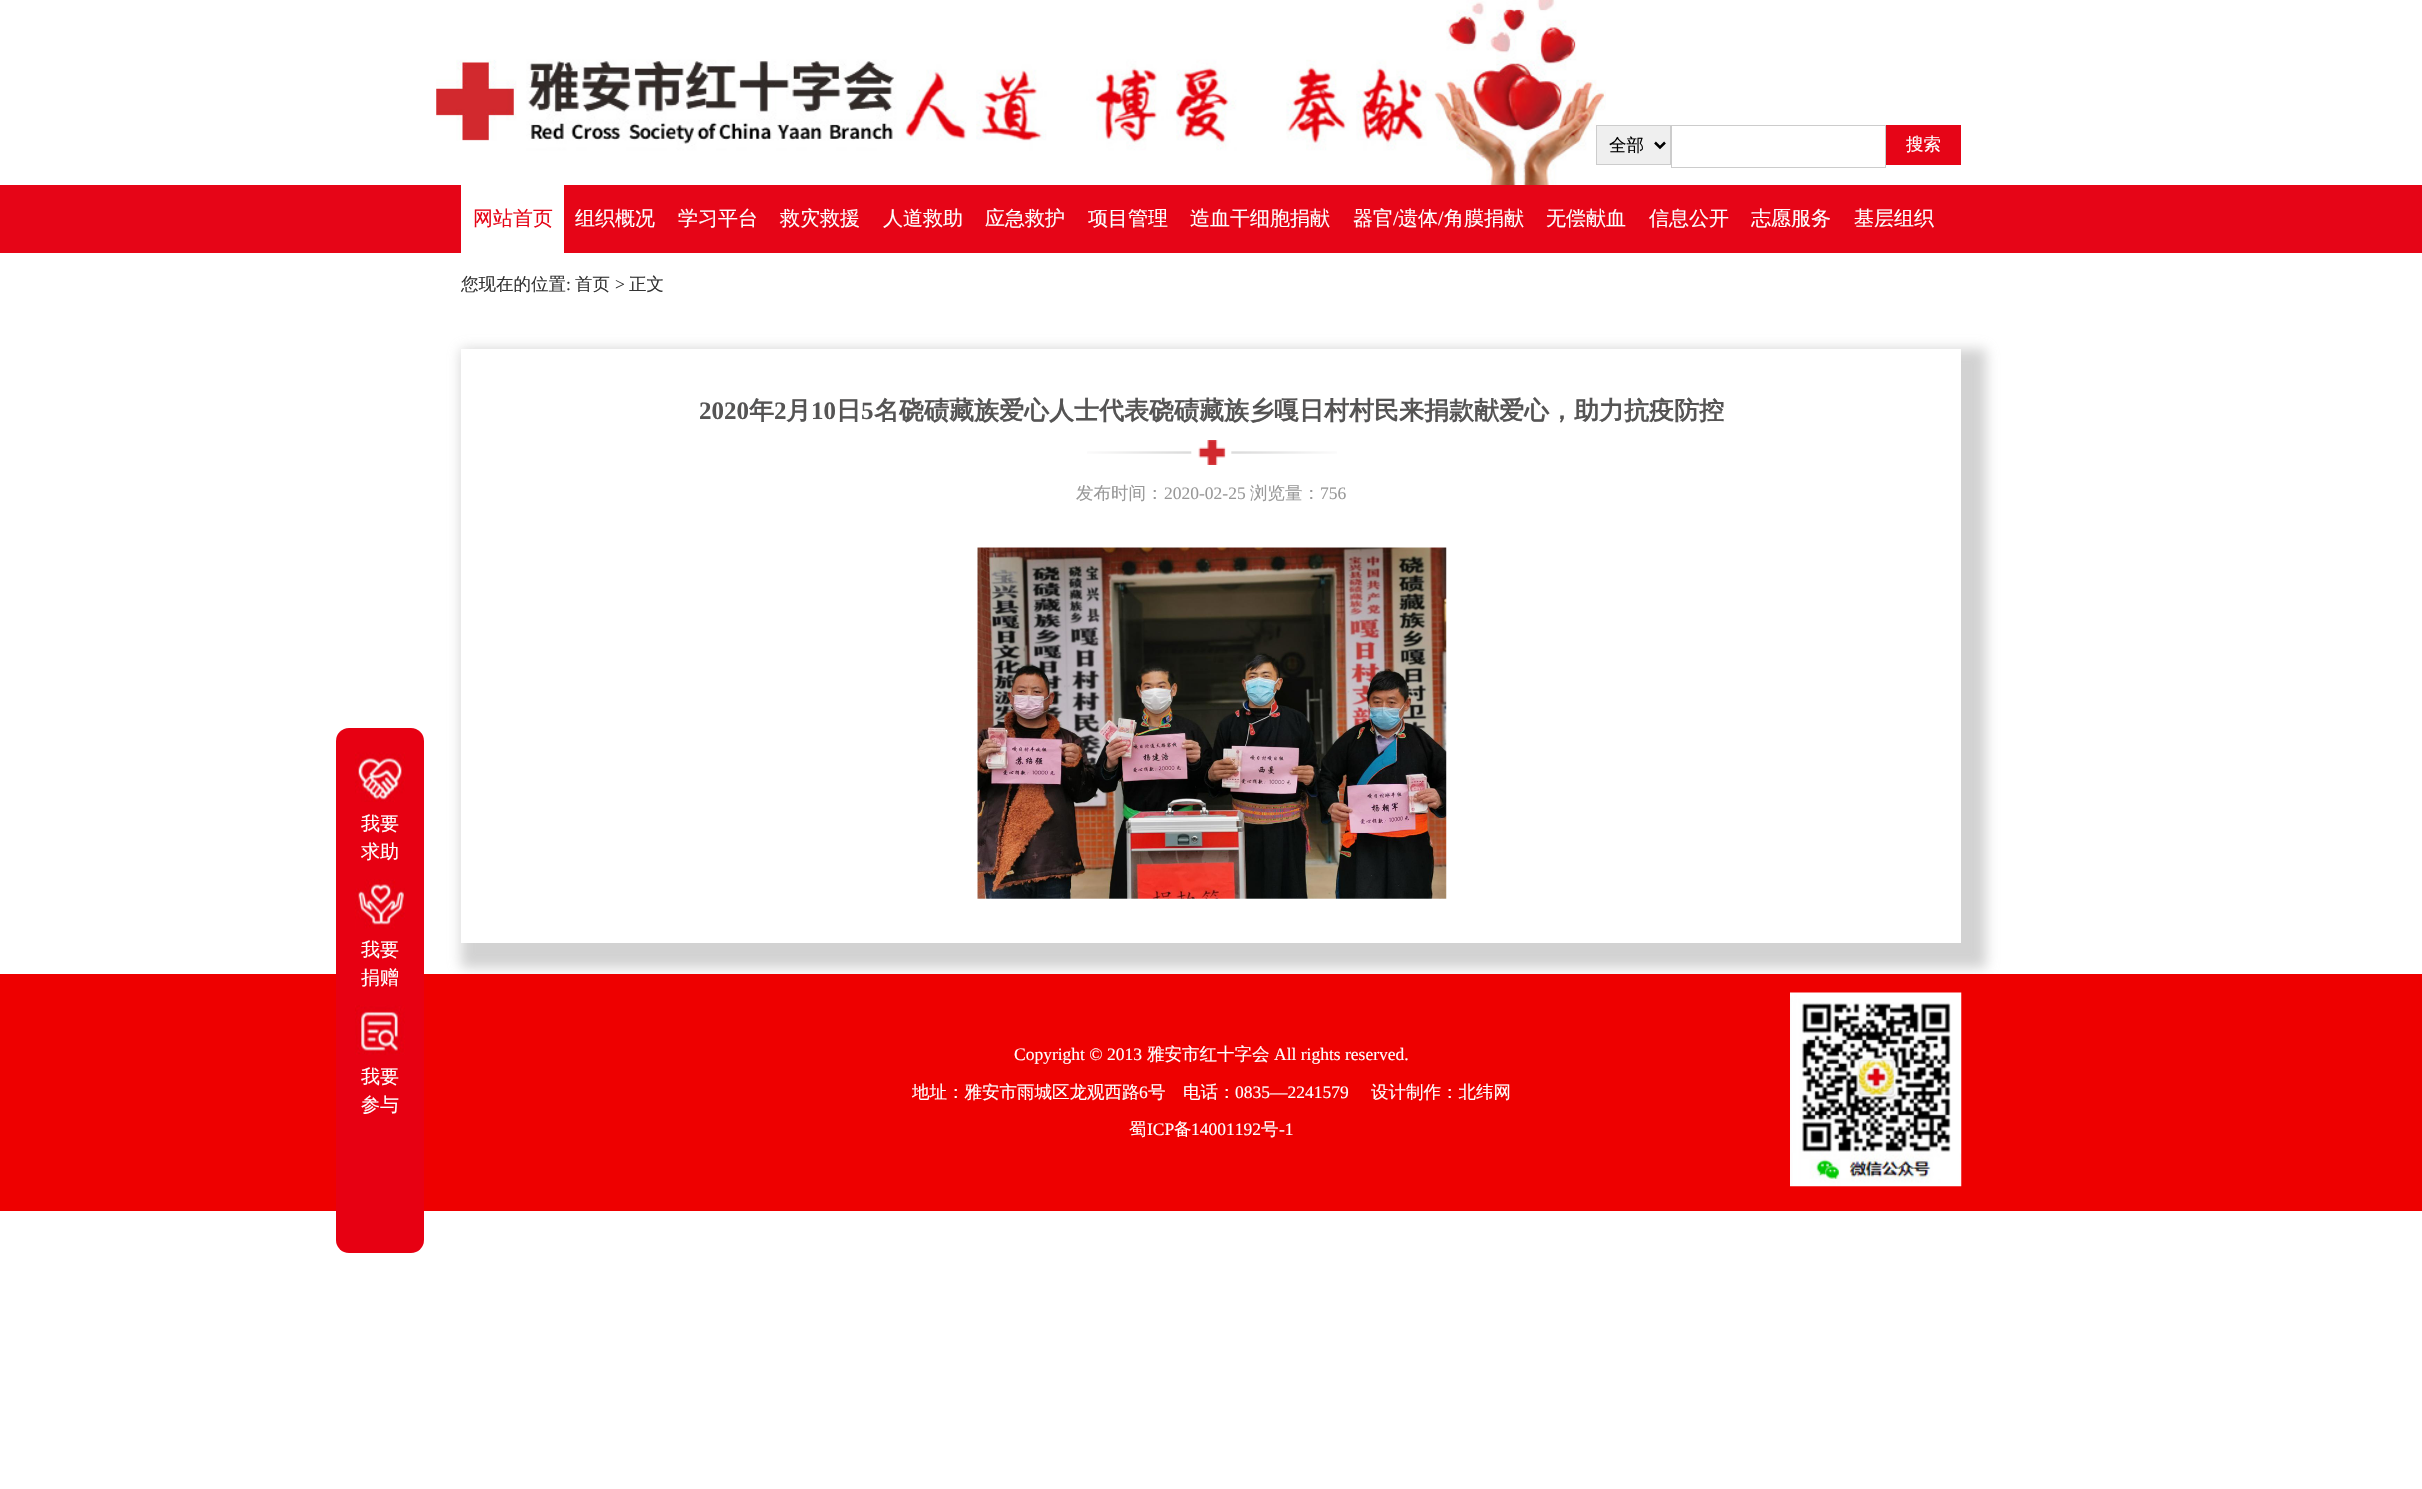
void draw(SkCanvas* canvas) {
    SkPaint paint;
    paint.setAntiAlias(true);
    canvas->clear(0xFFFFFFFF);
    canvas->drawImageRect(SkImages::DeferredFromEncodedData(SkData::MakeFromFileName("img1.png")), SkRect::MakeXYWH(436, 0, 1170, 185), SkSamplingOptions());
    paint.setColor(0xFFEFEFEF);
    canvas->drawRect(SkRect::MakeXYWH(1596.5f, 125.5f, 74, 39), paint);
    paint.setStyle(SkPaint::kStroke_Style);
    paint.setStrokeWidth(1);
    paint.setColor(0xFFCCCCCC);
    canvas->drawRect(SkRect::MakeXYWH(1596.5f, 125.5f, 74, 39), paint);
    paint.setStrokeWidth(2.5f);
    paint.setColor(0xFF000000);
    canvas->drawPath(SkPathBuilder().moveTo(1655, 142.5f).lineTo(1660, 147.5f).lineTo(1665, 142.5f).detach(), paint);
    SkFont font1(fontMgr->matchFamilyStyle("WenQuanYi Zen Hei", SkFontStyle(500, SkFontStyle::kNormal_Width, SkFontStyle::kUpright_Slant)), 17.5f);
    font1.setSubpixel(true);
    paint.setStyle(SkPaint::kFill_Style);
    canvas->drawString("全部", 1609, 151, font1, paint);
    paint.setStyle(SkPaint::kStroke_Style);
    paint.setStrokeWidth(1);
    paint.setColor(0xFFCCCCCC);
    canvas->drawRect(SkRect::MakeXYWH(1671.5f, 125.5f, 214, 42), paint);
    paint.setStyle(SkPaint::kFill_Style);
    paint.setColor(0xFFE60517);
    canvas->drawRect(SkRect::MakeXYWH(1886, 125, 75, 40), paint);
    paint.setColor(0xFFFFFFFF);
    canvas->drawString("搜索", 1906, 150, font1, paint);
    paint.setColor(0xFFE60517);
    canvas->drawRect(SkRect::MakeXYWH(0, 185, 2422, 68), paint);
    paint.setColor(0xFFFFFFFF);
    canvas->drawRect(SkRect::MakeXYWH(461, 185, 103, 68), paint);
    SkFont font2(fontMgr->matchFamilyStyle("WenQuanYi Zen Hei", SkFontStyle(500, SkFontStyle::kNormal_Width, SkFontStyle::kUpright_Slant)), 20);
    font2.setSubpixel(true);
    paint.setColor(0xFFE60517);
    canvas->drawString("网站首页", 473, 225, font2, paint);
    paint.setColor(0xFFFFFFFF);
    canvas->drawString("组织概况", 575, 225, font2, paint);
    canvas->drawString("学习平台", 678, 225, font2, paint);
    canvas->drawString("救灾救援", 780, 225, font2, paint);
    canvas->drawString("人道救助", 883, 225, font2, paint);
    canvas->drawString("应急救护", 985, 225, font2, paint);
    canvas->drawString("项目管理", 1088, 225, font2, paint);
    canvas->drawString("造血干细胞捐献", 1190, 225, font2, paint);
    canvas->drawString("器官", 1353, 225, font2, paint);
    SkFont font3(fontMgr->matchFamilyStyle("Liberation Serif", SkFontStyle::Normal()), 20);
    font3.setSubpixel(true);
    canvas->drawString("/", 1393, 225, font3, paint);
    canvas->drawString("遗体", 1398, 225, font2, paint);
    canvas->drawString("/", 1438, 225, font3, paint);
    canvas->drawString("角膜捐献", 1444, 225, font2, paint);
    canvas->drawString("无偿献血", 1546, 225, font2, paint);
    canvas->drawString("信息公开", 1649, 225, font2, paint);
    canvas->drawString("志愿服务", 1751, 225, font2, paint);
    canvas->drawString("基层组织", 1854, 225, font2, paint);
    paint.setColor(0xFF333333);
    canvas->drawString("您现在的位置", 461, 290, font1, paint);
    SkFont font4(fontMgr->matchFamilyStyle("Liberation Serif", SkFontStyle::Normal()), 17.5f);
    font4.setSubpixel(true);
    canvas->drawString(":", 566, 290, font4, paint);
    canvas->drawString("首页", 575, 290, font1, paint);
    canvas->drawString(">", 615, 290, font4, paint);
    canvas->drawString("正文", 629, 290, font1, paint);
    paint.setColor(0x99B4B4B4);
    paint.setMaskFilter(SkMaskFilter::MakeBlur(kNormal_SkBlurStyle, 6));
    canvas->drawRect(SkRect::MakeXYWH(461, 349, 1525, 619), paint);
    paint.setMaskFilter(nullptr);
    paint.setColor(0xFFFFFFFF);
    canvas->drawRect(SkRect::MakeXYWH(461, 349, 1500, 594), paint);
    SkFont font5(fontMgr->matchFamilyStyle("Liberation Serif", SkFontStyle::Bold()), 25);
    font5.setSubpixel(true);
    paint.setColor(0xFF555454);
    canvas->drawString("2020", 699, 419, font5, paint);
    SkFont font6(fontMgr->matchFamilyStyle("WenQuanYi Zen Hei", SkFontStyle::Bold()), 25);
    font6.setSubpixel(true);
    canvas->drawString("年", 749, 419, font6, paint);
    canvas->drawString("2", 774, 419, font5, paint);
    canvas->drawString("月", 786, 419, font6, paint);
    canvas->drawString("10", 811, 419, font5, paint);
    canvas->drawString("日", 836, 419, font6, paint);
    canvas->drawString("5", 861, 419, font5, paint);
    canvas->drawString("名硗碛藏族爱心人士代表硗碛藏族乡嘎日村村民来捐款献爱心，助力抗疫防控", 874, 419, font6, paint);
    canvas->drawImageRect(SkImages::DeferredFromEncodedData(SkData::MakeFromFileName("img2.png")), SkRect::MakeXYWH(1087, 440, 250, 25), SkSamplingOptions());
    paint.setColor(0xFF999999);
    canvas->drawString("发布时间：", 1076, 499, font1, paint);
    canvas->drawString("2020-02-25", 1164, 499, font4, paint);
    canvas->drawString("浏览量：", 1250, 499, font1, paint);
    canvas->drawString("756", 1320, 499, font4, paint);
    canvas->drawImageRect(SkImages::DeferredFromEncodedData(SkData::MakeFromFileName("img3.png")), SkRect::MakeXYWH(977, 547, 470, 352), SkSamplingOptions());
    paint.setColor(0xFFEE0000);
    canvas->drawRect(SkRect::MakeXYWH(0, 974, 2422, 237), paint);
    paint.setColor(0xFFE70012);
    canvas->drawRoundRect(SkRect::MakeXYWH(336, 728, 88, 525), 13, 13, paint);
    canvas->drawImageRect(SkImages::DeferredFromEncodedData(SkData::MakeFromFileName("img4.png")), SkRect::MakeXYWH(355, 752, 50, 50), SkSamplingOptions());
    SkFont font7(fontMgr->matchFamilyStyle("WenQuanYi Zen Hei", SkFontStyle(500, SkFontStyle::kNormal_Width, SkFontStyle::kUpright_Slant)), 19);
    font7.setSubpixel(true);
    paint.setColor(0xFFFFFFFF);
    canvas->drawString("我要", 361, 830, font7, paint);
    canvas->drawString("求助", 361, 858, font7, paint);
    canvas->drawImageRect(SkImages::DeferredFromEncodedData(SkData::MakeFromFileName("img5.png")), SkRect::MakeXYWH(355, 879, 50, 50), SkSamplingOptions());
    canvas->drawString("我要", 361, 956, font7, paint);
    canvas->drawString("捐赠", 361, 984, font7, paint);
    canvas->drawImageRect(SkImages::DeferredFromEncodedData(SkData::MakeFromFileName("img6.png")), SkRect::MakeXYWH(355, 1005, 50, 50), SkSamplingOptions());
    canvas->drawString("我要", 361, 1083, font7, paint);
    canvas->drawString("参与", 361, 1111, font7, paint);
    canvas->drawImageRect(SkImages::DeferredFromEncodedData(SkData::MakeFromFileName("img7.png")), SkRect::MakeXYWH(1790, 992, 172, 195), SkSamplingOptions());
    canvas->drawString("Copyright © 2013", 1014, 1060, font4, paint);
    canvas->drawString("雅安市红十字会", 1147, 1060, font1, paint);
    canvas->drawString("All rights reserved.", 1274, 1060, font4, paint);
    canvas->drawString("地址：雅安市雨城区龙观西路", 912, 1098, font1, paint);
    canvas->drawString("6", 1139, 1098, font4, paint);
    canvas->drawString("号　电话：", 1148, 1098, font1, paint);
    canvas->drawString("0835—2241579", 1235, 1098, font4, paint);
    canvas->drawString("设计制作：北纬网", 1371, 1098, font1, paint);
    canvas->drawString("蜀", 1129, 1135, font1, paint);
    canvas->drawString("ICP", 1147, 1135, font4, paint);
    canvas->drawString("备", 1174, 1135, font1, paint);
    canvas->drawString("14001192", 1191, 1135, font4, paint);
    canvas->drawString("号", 1261, 1135, font1, paint);
    canvas->drawString("-1", 1279, 1135, font4, paint);
}
